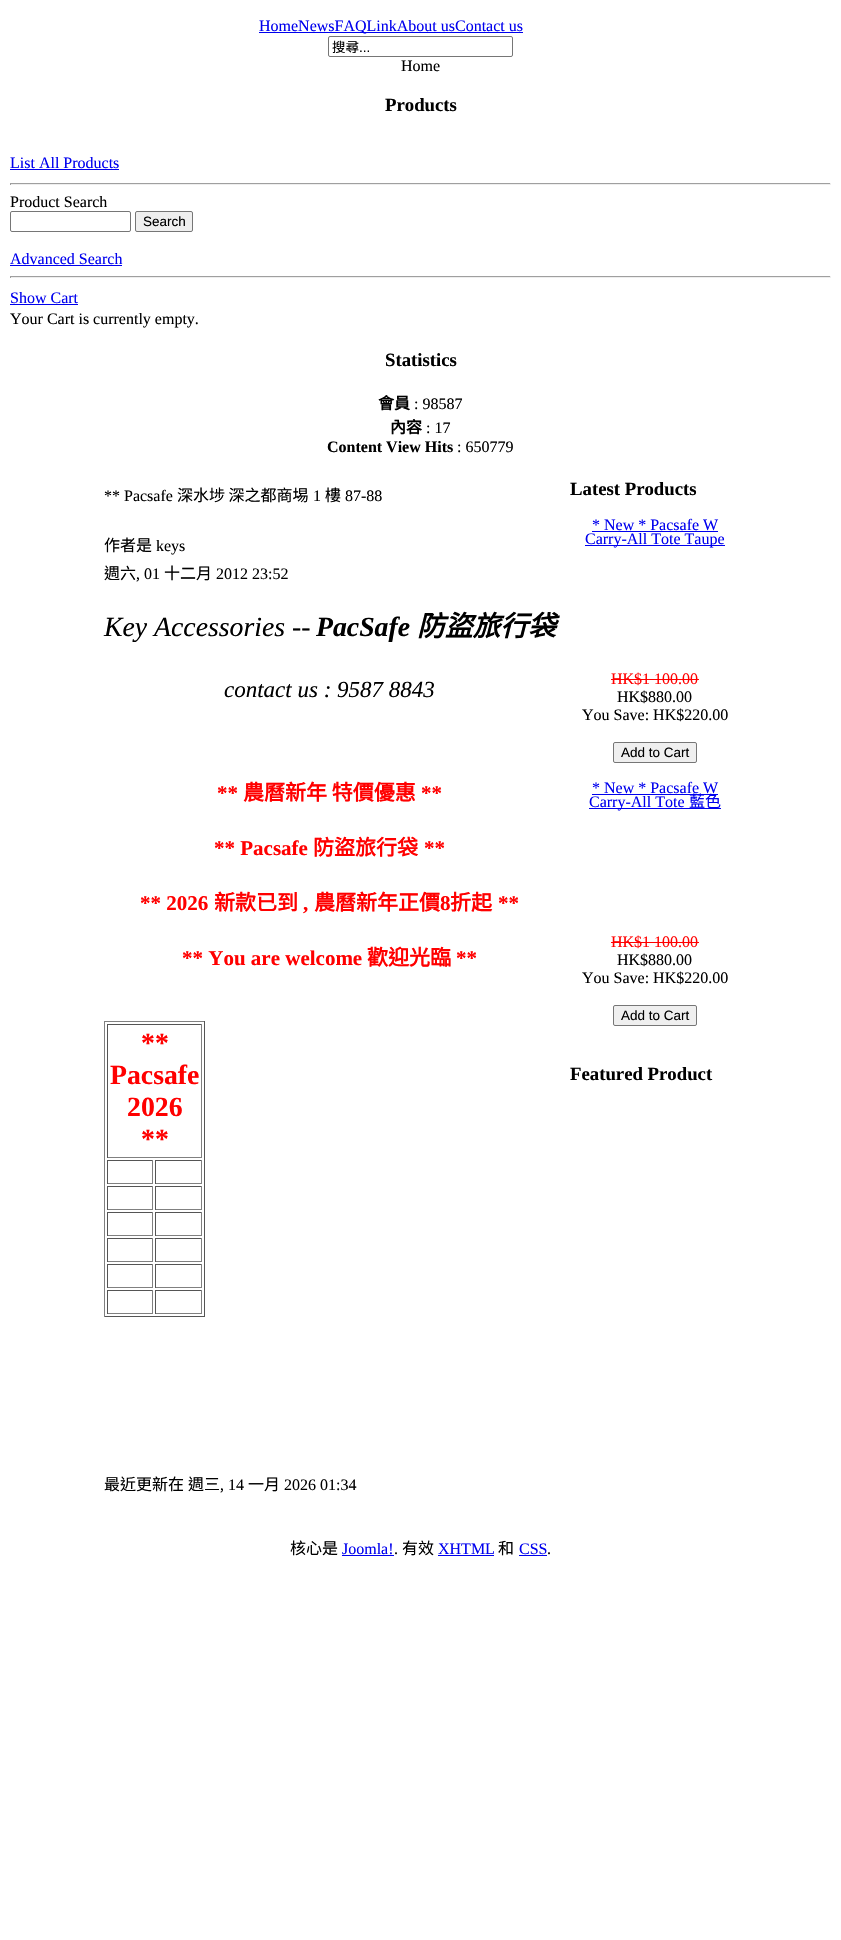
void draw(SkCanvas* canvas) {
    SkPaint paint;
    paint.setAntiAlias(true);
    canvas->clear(0xFFFFFFFF);
    paint.setColor(0xFF0000EE);
    canvas->drawRect(SkRect::MakeXYWH(259, 32, 264, 1), paint);
    SkFont font1(fontMgr->matchFamilyStyle("Liberation Serif", SkFontStyle::Normal()), 16);
    font1.setSubpixel(true);
    canvas->drawString("HomeNewsFAQLinkAbout usContact us", 259, 31, font1, paint);
    paint.setStyle(SkPaint::kStroke_Style);
    paint.setStrokeWidth(1);
    paint.setColor(0xFF767676);
    canvas->drawRoundRect(SkRect::MakeXYWH(328.5f, 36.5f, 184, 20), 1.5f, 1.5f, paint);
    SkFont font2(fontMgr->matchFamilyStyle("Noto Sans CJK TC", SkFontStyle::Normal()), 13.5f);
    font2.setSubpixel(true);
    paint.setStyle(SkPaint::kFill_Style);
    paint.setColor(0xFF000000);
    canvas->drawString("搜尋", 332, 52, font2, paint);
    SkFont font3(fontMgr->matchFamilyStyle("Liberation Sans", SkFontStyle::Normal()), 13.5f);
    font3.setSubpixel(true);
    canvas->drawString("...", 359, 52, font3, paint);
    canvas->drawString("Home", 401, 71, font1, paint);
    SkFont font4(fontMgr->matchFamilyStyle("Liberation Serif", SkFontStyle::Bold()), 18.75f);
    font4.setSubpixel(true);
    canvas->drawString("Products", 385, 111, font4, paint);
    paint.setColor(0xFF0000EE);
    canvas->drawString("List All Products", 10, 168, font1, paint);
    canvas->drawRect(SkRect::MakeXYWH(10, 169, 109, 1), paint);
    paint.setColor(0xFF9F9F9F);
    canvas->drawRect(SkRect::MakeXYWH(10, 183, 821, 1), paint);
    paint.setColor(0xFFEEEEEE);
    canvas->drawRect(SkRect::MakeXYWH(830, 183, 1, 2), paint);
    canvas->drawRect(SkRect::MakeXYWH(10, 184, 821, 1), paint);
    paint.setColor(0xFF9F9F9F);
    canvas->drawRect(SkRect::MakeXYWH(10, 183, 1, 2), paint);
    paint.setColor(0xFF000000);
    canvas->drawString("Product Search", 10, 207, font1, paint);
    paint.setStyle(SkPaint::kStroke_Style);
    paint.setColor(0xFF767676);
    canvas->drawRoundRect(SkRect::MakeXYWH(10.5f, 211.5f, 120, 20), 1.5f, 1.5f, paint);
    paint.setStyle(SkPaint::kFill_Style);
    paint.setColor(0xFFEFEFEF);
    canvas->drawRoundRect(SkRect::MakeXYWH(135.5f, 211.5f, 57, 20), 1.5f, 1.5f, paint);
    paint.setStyle(SkPaint::kStroke_Style);
    paint.setColor(0xFF767676);
    canvas->drawRoundRect(SkRect::MakeXYWH(135.5f, 211.5f, 57, 20), 1.5f, 1.5f, paint);
    paint.setStyle(SkPaint::kFill_Style);
    paint.setColor(0xFF000000);
    canvas->drawString("Search", 143, 226, font3, paint);
    paint.setColor(0xFF0000EE);
    canvas->drawString("Advanced Search", 10, 264, font1, paint);
    canvas->drawRect(SkRect::MakeXYWH(10, 265, 112, 1), paint);
    paint.setColor(0xFF9F9F9F);
    canvas->drawRect(SkRect::MakeXYWH(10, 276, 821, 1), paint);
    paint.setColor(0xFFEEEEEE);
    canvas->drawRect(SkRect::MakeXYWH(830, 276, 1, 2), paint);
    canvas->drawRect(SkRect::MakeXYWH(10, 277, 821, 1), paint);
    paint.setColor(0xFF9F9F9F);
    canvas->drawRect(SkRect::MakeXYWH(10, 276, 1, 2), paint);
    paint.setColor(0xFF0000EE);
    canvas->drawString("Show Cart", 10, 303, font1, paint);
    canvas->drawRect(SkRect::MakeXYWH(10, 304, 68, 1), paint);
    paint.setColor(0xFF000000);
    canvas->drawString("Your Cart is currently empty.", 10, 324, font1, paint);
    canvas->drawString("Statistics", 385, 366, font4, paint);
    SkFont font5(fontMgr->matchFamilyStyle("Noto Sans CJK TC", SkFontStyle::Bold()), 16);
    font5.setSubpixel(true);
    canvas->drawString("會員", 378, 409, font5, paint);
    canvas->drawString(": 98587", 414, 409, font1, paint);
    canvas->drawString("內容", 390, 433, font5, paint);
    canvas->drawString(": 17", 426, 433, font1, paint);
    SkFont font6(fontMgr->matchFamilyStyle("Liberation Serif", SkFontStyle::Bold()), 16);
    font6.setSubpixel(true);
    canvas->drawString("Content View Hits", 327, 452, font6, paint);
    canvas->drawString(": 650779", 457, 452, font1, paint);
    canvas->drawString("** Pacsafe", 104, 501, font1, paint);
    SkFont font7(fontMgr->matchFamilyStyle("Noto Sans CJK TC", SkFontStyle::Normal()), 16);
    font7.setSubpixel(true);
    canvas->drawString("深水埗 深之都商埸", 177, 501, font7, paint);
    canvas->drawString("1", 313, 501, font1, paint);
    canvas->drawString("樓", 325, 501, font7, paint);
    canvas->drawString("87-88", 345, 501, font1, paint);
    canvas->drawString("作者是", 104, 551, font7, paint);
    canvas->drawString("keys", 156, 551, font1, paint);
    canvas->drawString("週六", 104, 579, font7, paint);
    canvas->drawString(", 01", 136, 579, font1, paint);
    canvas->drawString("十二月", 164, 579, font7, paint);
    canvas->drawString("2012 23:52", 216, 579, font1, paint);
    SkFont font8(fontMgr->matchFamilyStyle("Liberation Serif", SkFontStyle::Italic()), 27.75f);
    font8.setSubpixel(true);
    canvas->drawString("Key Accessories --", 104, 636, font8, paint);
    SkFont font9(fontMgr->matchFamilyStyle("Liberation Serif", SkFontStyle::BoldItalic()), 27.75f);
    font9.setSubpixel(true);
    canvas->drawString("PacSafe", 316, 636, font9, paint);
    SkFont font10(fontMgr->matchFamilyStyle("Noto Sans CJK TC", SkFontStyle::BoldItalic()), 27.75f);
    font10.setSubpixel(true);
    canvas->drawString("防盜旅行袋", 417, 636, font10, paint);
    SkFont font11(fontMgr->matchFamilyStyle("Liberation Serif", SkFontStyle::Italic()), 23);
    font11.setSubpixel(true);
    canvas->drawString("contact us : 9587 8843", 224, 697, font11, paint);
    SkFont font12(fontMgr->matchFamilyStyle("Liberation Serif", SkFontStyle::Bold()), 21);
    font12.setSubpixel(true);
    paint.setColor(0xFFFF0000);
    canvas->drawString("**", 217, 800, font12, paint);
    SkFont font13(fontMgr->matchFamilyStyle("Noto Sans CJK TC", SkFontStyle::Bold()), 21);
    font13.setSubpixel(true);
    canvas->drawString("農曆新年 特價優惠", 243, 800, font13, paint);
    canvas->drawString("**", 421, 800, font12, paint);
    canvas->drawString("** Pacsafe", 214, 855, font12, paint);
    canvas->drawString("防盜旅行袋", 313, 855, font13, paint);
    canvas->drawString("**", 424, 855, font12, paint);
    canvas->drawString("** 2026", 140, 910, font12, paint);
    canvas->drawString("新款已到", 214, 910, font13, paint);
    canvas->drawString("農曆新年正價", 314, 910, font13, paint);
    canvas->drawString("8", 440, 910, font12, paint);
    canvas->drawString("折起", 450, 910, font13, paint);
    canvas->drawString("**", 498, 910, font12, paint);
    canvas->drawString(",", 303, 910, font12, paint);
    canvas->drawString("** You are welcome", 182, 965, font12, paint);
    canvas->drawString("歡迎光臨", 367, 965, font13, paint);
    canvas->drawString("**", 456, 965, font12, paint);
    paint.setColor(0xFF808080);
    canvas->drawRect(SkRect::MakeXYWH(104, 1021, 101, 1), paint);
    paint.setColor(0xFF555555);
    canvas->drawRect(SkRect::MakeXYWH(204, 1021, 1, 296), paint);
    canvas->drawRect(SkRect::MakeXYWH(104, 1316, 101, 1), paint);
    paint.setColor(0xFF808080);
    canvas->drawRect(SkRect::MakeXYWH(104, 1021, 1, 296), paint);
    paint.setColor(0xFF555555);
    canvas->drawRect(SkRect::MakeXYWH(107, 1024, 95, 1), paint);
    paint.setColor(0xFF808080);
    canvas->drawRect(SkRect::MakeXYWH(201, 1024, 1, 134), paint);
    canvas->drawRect(SkRect::MakeXYWH(107, 1157, 95, 1), paint);
    paint.setColor(0xFF555555);
    canvas->drawRect(SkRect::MakeXYWH(107, 1024, 1, 134), paint);
    SkFont font14(fontMgr->matchFamilyStyle("Liberation Serif", SkFontStyle::Bold()), 27.75f);
    font14.setSubpixel(true);
    paint.setColor(0xFFFF0000);
    canvas->drawString("**", 141, 1052, font14, paint);
    canvas->drawString("Pacsafe", 110, 1084, font14, paint);
    canvas->drawString("2026", 127, 1116, font14, paint);
    canvas->drawString("**", 141, 1148, font14, paint);
    paint.setColor(0xFF555555);
    canvas->drawRect(SkRect::MakeXYWH(107, 1160, 46, 1), paint);
    paint.setColor(0xFF808080);
    canvas->drawRect(SkRect::MakeXYWH(152, 1160, 1, 24), paint);
    canvas->drawRect(SkRect::MakeXYWH(107, 1183, 46, 1), paint);
    paint.setColor(0xFF555555);
    canvas->drawRect(SkRect::MakeXYWH(107, 1160, 1, 24), paint);
    canvas->drawRect(SkRect::MakeXYWH(155, 1160, 47, 1), paint);
    paint.setColor(0xFF808080);
    canvas->drawRect(SkRect::MakeXYWH(201, 1160, 1, 24), paint);
    canvas->drawRect(SkRect::MakeXYWH(155, 1183, 47, 1), paint);
    paint.setColor(0xFF555555);
    canvas->drawRect(SkRect::MakeXYWH(155, 1160, 1, 24), paint);
    canvas->drawRect(SkRect::MakeXYWH(107, 1186, 46, 1), paint);
    paint.setColor(0xFF808080);
    canvas->drawRect(SkRect::MakeXYWH(152, 1186, 1, 24), paint);
    canvas->drawRect(SkRect::MakeXYWH(107, 1209, 46, 1), paint);
    paint.setColor(0xFF555555);
    canvas->drawRect(SkRect::MakeXYWH(107, 1186, 1, 24), paint);
    canvas->drawRect(SkRect::MakeXYWH(155, 1186, 47, 1), paint);
    paint.setColor(0xFF808080);
    canvas->drawRect(SkRect::MakeXYWH(201, 1186, 1, 24), paint);
    canvas->drawRect(SkRect::MakeXYWH(155, 1209, 47, 1), paint);
    paint.setColor(0xFF555555);
    canvas->drawRect(SkRect::MakeXYWH(155, 1186, 1, 24), paint);
    canvas->drawRect(SkRect::MakeXYWH(107, 1212, 46, 1), paint);
    paint.setColor(0xFF808080);
    canvas->drawRect(SkRect::MakeXYWH(152, 1212, 1, 24), paint);
    canvas->drawRect(SkRect::MakeXYWH(107, 1235, 46, 1), paint);
    paint.setColor(0xFF555555);
    canvas->drawRect(SkRect::MakeXYWH(107, 1212, 1, 24), paint);
    canvas->drawRect(SkRect::MakeXYWH(155, 1212, 47, 1), paint);
    paint.setColor(0xFF808080);
    canvas->drawRect(SkRect::MakeXYWH(201, 1212, 1, 24), paint);
    canvas->drawRect(SkRect::MakeXYWH(155, 1235, 47, 1), paint);
    paint.setColor(0xFF555555);
    canvas->drawRect(SkRect::MakeXYWH(155, 1212, 1, 24), paint);
    canvas->drawRect(SkRect::MakeXYWH(107, 1238, 46, 1), paint);
    paint.setColor(0xFF808080);
    canvas->drawRect(SkRect::MakeXYWH(152, 1238, 1, 24), paint);
    canvas->drawRect(SkRect::MakeXYWH(107, 1261, 46, 1), paint);
    paint.setColor(0xFF555555);
    canvas->drawRect(SkRect::MakeXYWH(107, 1238, 1, 24), paint);
    canvas->drawRect(SkRect::MakeXYWH(155, 1238, 47, 1), paint);
    paint.setColor(0xFF808080);
    canvas->drawRect(SkRect::MakeXYWH(201, 1238, 1, 24), paint);
    canvas->drawRect(SkRect::MakeXYWH(155, 1261, 47, 1), paint);
    paint.setColor(0xFF555555);
    canvas->drawRect(SkRect::MakeXYWH(155, 1238, 1, 24), paint);
    canvas->drawRect(SkRect::MakeXYWH(107, 1264, 46, 1), paint);
    paint.setColor(0xFF808080);
    canvas->drawRect(SkRect::MakeXYWH(152, 1264, 1, 24), paint);
    canvas->drawRect(SkRect::MakeXYWH(107, 1287, 46, 1), paint);
    paint.setColor(0xFF555555);
    canvas->drawRect(SkRect::MakeXYWH(107, 1264, 1, 24), paint);
    canvas->drawRect(SkRect::MakeXYWH(155, 1264, 47, 1), paint);
    paint.setColor(0xFF808080);
    canvas->drawRect(SkRect::MakeXYWH(201, 1264, 1, 24), paint);
    canvas->drawRect(SkRect::MakeXYWH(155, 1287, 47, 1), paint);
    paint.setColor(0xFF555555);
    canvas->drawRect(SkRect::MakeXYWH(155, 1264, 1, 24), paint);
    canvas->drawRect(SkRect::MakeXYWH(107, 1290, 46, 1), paint);
    paint.setColor(0xFF808080);
    canvas->drawRect(SkRect::MakeXYWH(152, 1290, 1, 24), paint);
    canvas->drawRect(SkRect::MakeXYWH(107, 1313, 46, 1), paint);
    paint.setColor(0xFF555555);
    canvas->drawRect(SkRect::MakeXYWH(107, 1290, 1, 24), paint);
    canvas->drawRect(SkRect::MakeXYWH(155, 1290, 47, 1), paint);
    paint.setColor(0xFF808080);
    canvas->drawRect(SkRect::MakeXYWH(201, 1290, 1, 24), paint);
    canvas->drawRect(SkRect::MakeXYWH(155, 1313, 47, 1), paint);
    paint.setColor(0xFF555555);
    canvas->drawRect(SkRect::MakeXYWH(155, 1290, 1, 24), paint);
    paint.setColor(0xFF000000);
    canvas->drawString("最近更新在", 104, 1490, font7, paint);
    canvas->drawString("週三", 188, 1490, font7, paint);
    canvas->drawString(", 14", 220, 1490, font1, paint);
    canvas->drawString("一月", 248, 1490, font7, paint);
    canvas->drawString("2026 01:34", 284, 1490, font1, paint);
    canvas->drawString("Latest Products", 570, 495, font4, paint);
    paint.setColor(0xFF0000EE);
    canvas->drawString("* New * Pacsafe W", 592, 530, font1, paint);
    canvas->drawRect(SkRect::MakeXYWH(592, 531, 126, 1), paint);
    canvas->drawRect(SkRect::MakeXYWH(585, 545, 140, 1), paint);
    canvas->drawString("Carry-All Tote Taupe", 585, 544, font1, paint);
    paint.setColor(0xFFFF0000);
    canvas->drawString("HK$1 100.00", 611, 684, font1, paint);
    canvas->drawRect(SkRect::MakeXYWH(611, 679, 88, 1), paint);
    paint.setColor(0xFF000000);
    canvas->drawString("HK$880.00", 617, 702, font1, paint);
    canvas->drawString("You Save: HK$220.00", 582, 720, font1, paint);
    paint.setColor(0xFFEFEFEF);
    canvas->drawRoundRect(SkRect::MakeXYWH(613.5f, 742.5f, 83, 20), 1.5f, 1.5f, paint);
    paint.setStyle(SkPaint::kStroke_Style);
    paint.setColor(0xFF767676);
    canvas->drawRoundRect(SkRect::MakeXYWH(613.5f, 742.5f, 83, 20), 1.5f, 1.5f, paint);
    paint.setStyle(SkPaint::kFill_Style);
    paint.setColor(0xFF000000);
    canvas->drawString("Add to Cart", 621, 757, font3, paint);
    paint.setColor(0xFF0000EE);
    canvas->drawString("* New * Pacsafe W", 592, 793, font1, paint);
    canvas->drawRect(SkRect::MakeXYWH(589, 808, 132, 1), paint);
    canvas->drawString("Carry-All Tote", 589, 807, font1, paint);
    canvas->drawRect(SkRect::MakeXYWH(592, 794, 126, 1), paint);
    canvas->drawString("藍色", 689, 807, font7, paint);
    paint.setColor(0xFFFF0000);
    canvas->drawString("HK$1 100.00", 611, 947, font1, paint);
    canvas->drawRect(SkRect::MakeXYWH(611, 942, 88, 1), paint);
    paint.setColor(0xFF000000);
    canvas->drawString("HK$880.00", 617, 965, font1, paint);
    canvas->drawString("You Save: HK$220.00", 582, 983, font1, paint);
    paint.setColor(0xFFEFEFEF);
    canvas->drawRoundRect(SkRect::MakeXYWH(613.5f, 1005.5f, 83, 20), 1.5f, 1.5f, paint);
    paint.setStyle(SkPaint::kStroke_Style);
    paint.setColor(0xFF767676);
    canvas->drawRoundRect(SkRect::MakeXYWH(613.5f, 1005.5f, 83, 20), 1.5f, 1.5f, paint);
    paint.setStyle(SkPaint::kFill_Style);
    paint.setColor(0xFF000000);
    canvas->drawString("Add to Cart", 621, 1020, font3, paint);
    canvas->drawString("Featured Product", 570, 1080, font4, paint);
    canvas->drawString("核心是", 290, 1554, font7, paint);
    paint.setColor(0xFF0000EE);
    canvas->drawString("Joomla!", 342, 1554, font1, paint);
    canvas->drawRect(SkRect::MakeXYWH(342, 1555, 52, 1), paint);
    paint.setColor(0xFF000000);
    canvas->drawString(".", 394, 1554, font1, paint);
    canvas->drawString("有效", 402, 1554, font7, paint);
    paint.setColor(0xFF0000EE);
    canvas->drawString("XHTML", 438, 1554, font1, paint);
    canvas->drawRect(SkRect::MakeXYWH(438, 1555, 56, 1), paint);
    paint.setColor(0xFF000000);
    canvas->drawString("和", 498, 1554, font7, paint);
    paint.setColor(0xFF0000EE);
    canvas->drawString("CSS", 519, 1554, font1, paint);
    canvas->drawRect(SkRect::MakeXYWH(519, 1555, 28, 1), paint);
    paint.setColor(0xFF000000);
    canvas->drawString(".", 547, 1554, font1, paint);
}
